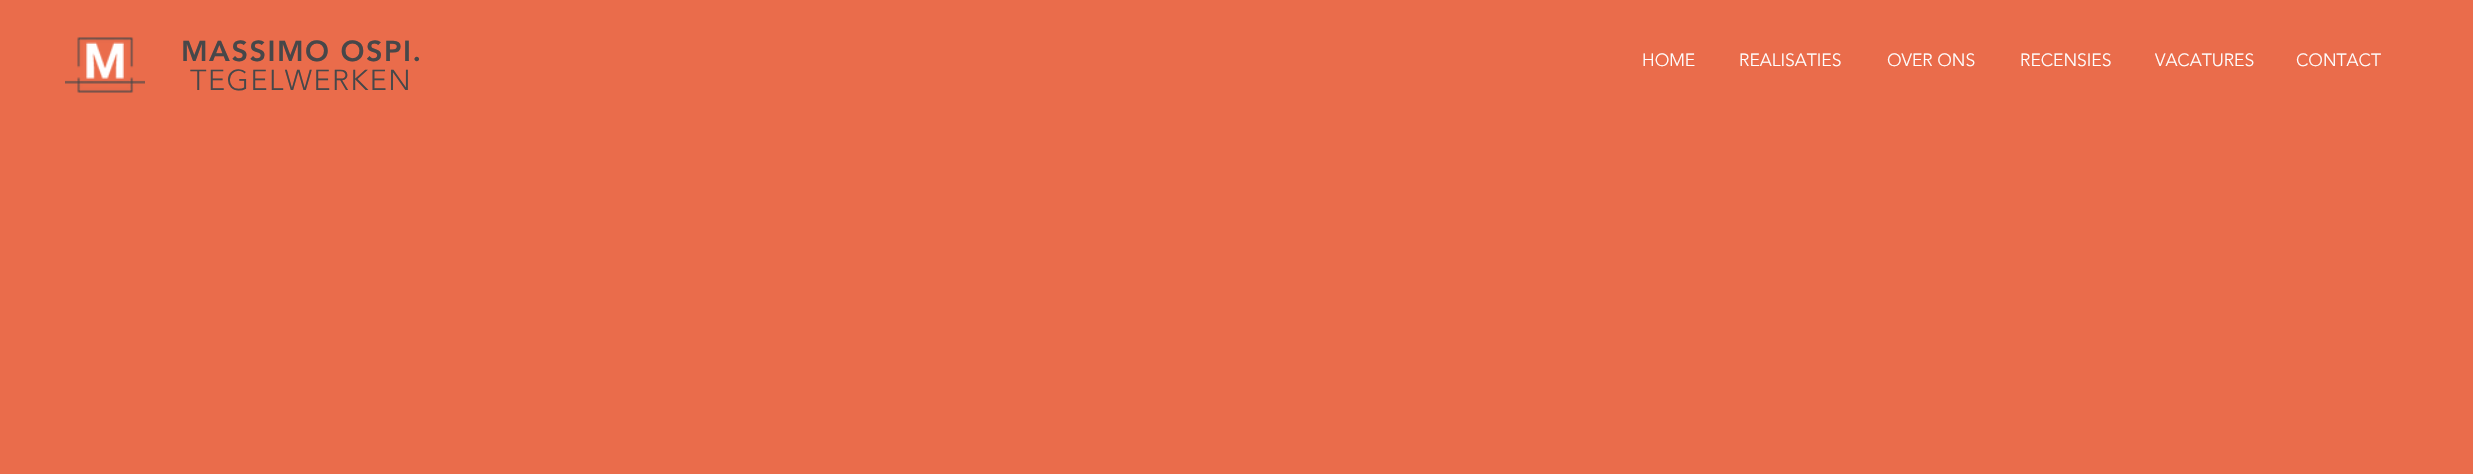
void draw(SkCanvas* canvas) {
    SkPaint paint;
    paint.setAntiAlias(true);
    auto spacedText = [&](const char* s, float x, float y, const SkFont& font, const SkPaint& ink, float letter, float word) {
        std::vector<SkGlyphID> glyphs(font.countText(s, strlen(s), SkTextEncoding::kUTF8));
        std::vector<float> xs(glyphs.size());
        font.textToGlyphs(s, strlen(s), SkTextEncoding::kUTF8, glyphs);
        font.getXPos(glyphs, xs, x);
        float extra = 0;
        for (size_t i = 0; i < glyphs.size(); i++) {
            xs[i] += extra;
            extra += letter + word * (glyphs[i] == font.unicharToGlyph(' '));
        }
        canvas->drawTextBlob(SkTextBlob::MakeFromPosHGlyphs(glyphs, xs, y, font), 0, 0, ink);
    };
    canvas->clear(0xFFEA6C4B);
    canvas->drawImageRect(SkImages::DeferredFromEncodedData(SkData::MakeFromFileName("img1.png")), SkRect::MakeXYWH(65, 37, 80, 56), SkSamplingOptions());
    SkFont font1(fontMgr->matchFamilyStyle("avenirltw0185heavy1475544", SkFontStyle(900, SkFontStyle::kNormal_Width, SkFontStyle::kUpright_Slant)), 28.75f);
    font1.setSubpixel(true);
    paint.setColor(0xFF474749);
    spacedText("MASSIMO OSPI.", 181, 61, font1, paint, 1.5f, 0);
    SkFont font2(fontMgr->matchFamilyStyle("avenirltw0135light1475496", SkFontStyle(300, SkFontStyle::kNormal_Width, SkFontStyle::kUpright_Slant)), 28.75f);
    font2.setSubpixel(true);
    spacedText("TEGELWERKEN", 190, 90, font2, paint, 1.5f, 0);
    SkFont font3(fontMgr->matchFamilyStyle("avenirltw0135light1475496", SkFontStyle(300, SkFontStyle::kNormal_Width, SkFontStyle::kUpright_Slant)), 17.5f);
    font3.setSubpixel(true);
    paint.setColor(0xFFFFFFFF);
    canvas->drawString("HOME", 1642, 66, font3, paint);
    canvas->drawString("REALISATIES", 1739, 66, font3, paint);
    canvas->drawString("OVER ONS", 1887, 66, font3, paint);
    canvas->drawString("RECENSIES", 2020, 66, font3, paint);
    canvas->drawString("VACATURES", 2155, 66, font3, paint);
    canvas->drawString("CONTACT", 2296, 66, font3, paint);
}
